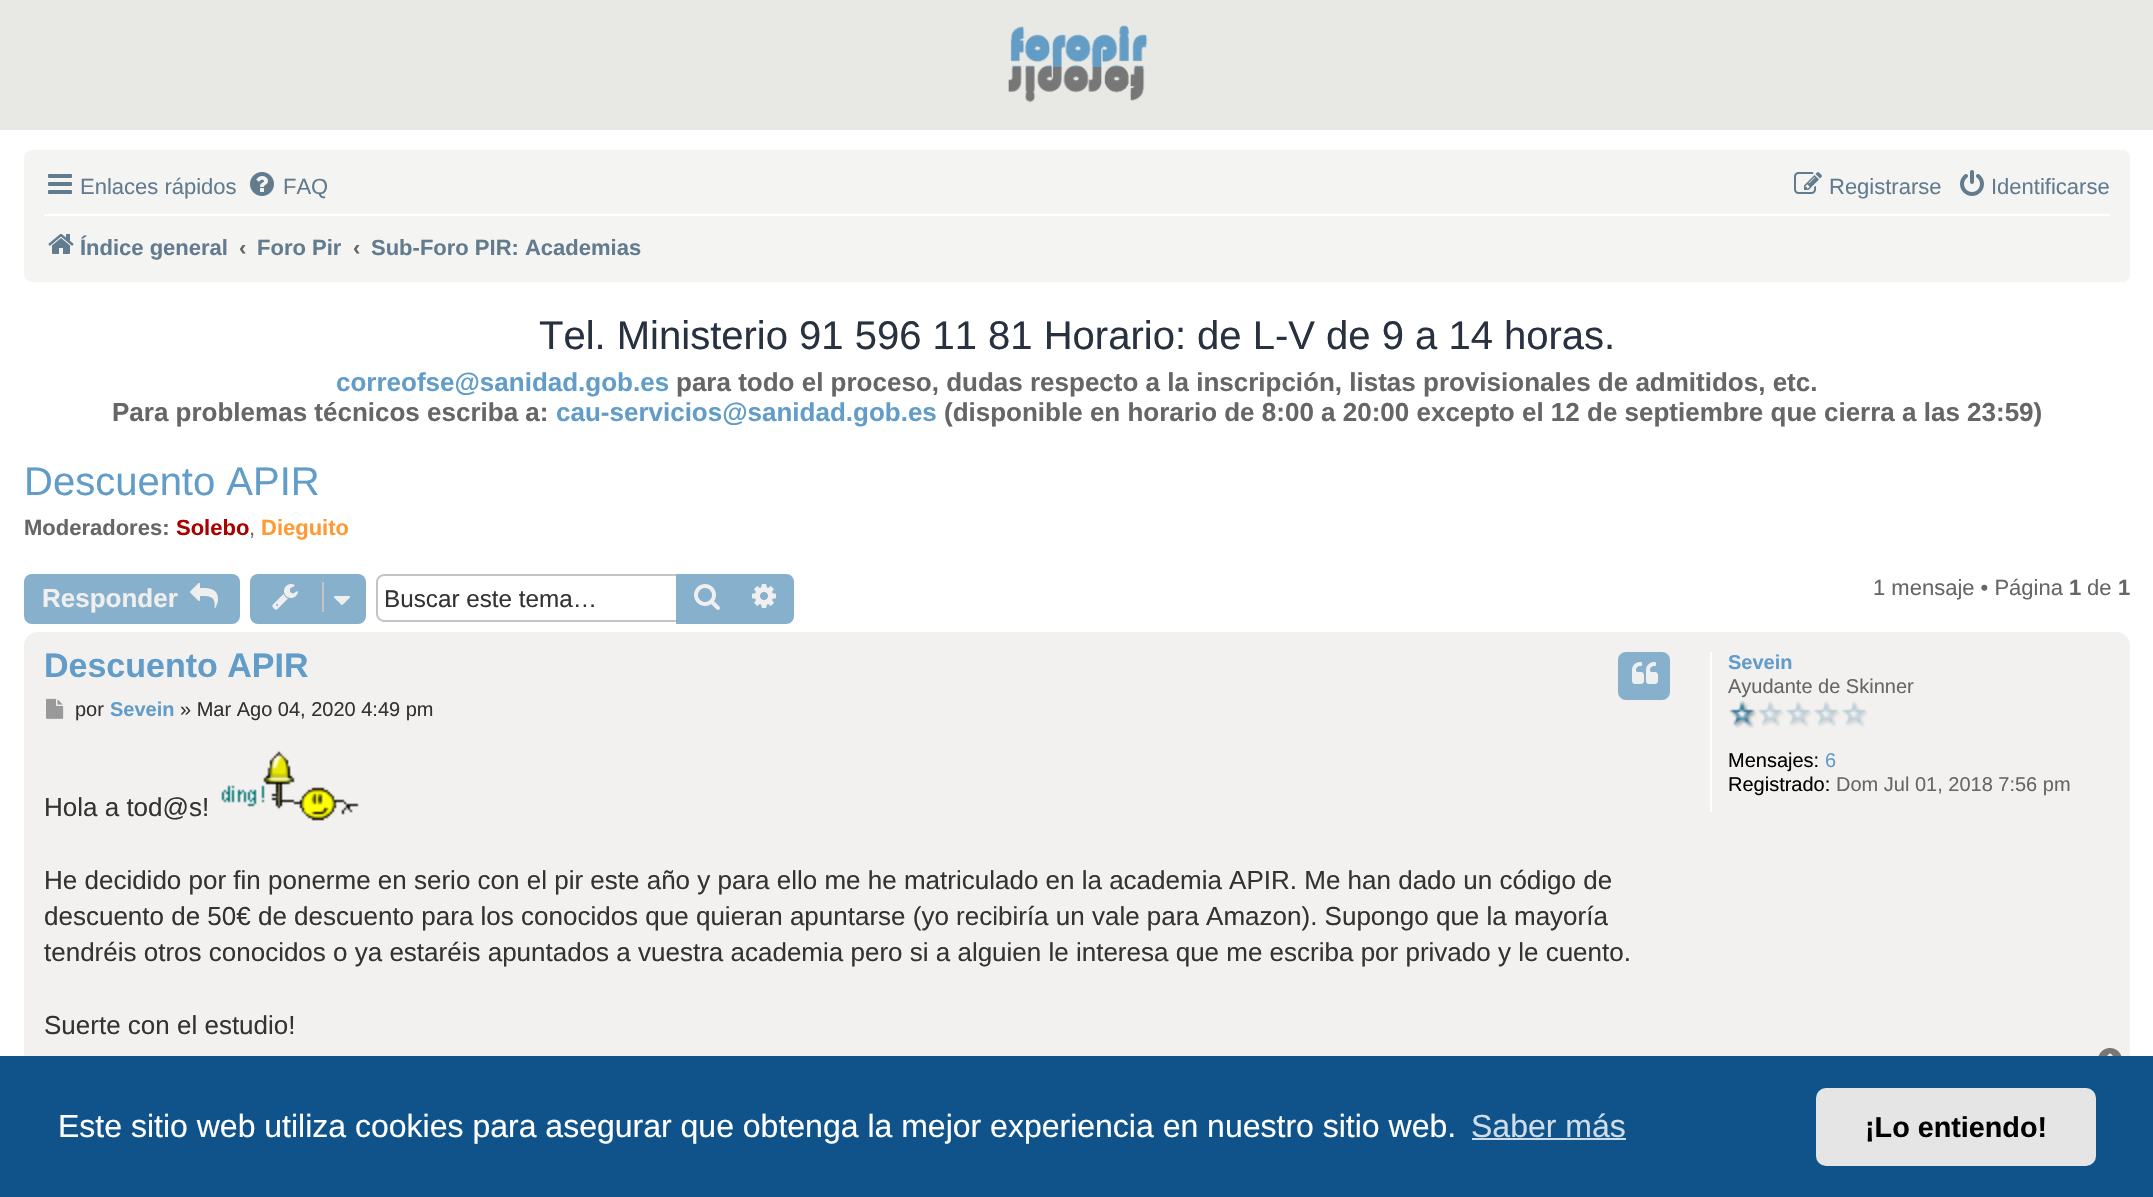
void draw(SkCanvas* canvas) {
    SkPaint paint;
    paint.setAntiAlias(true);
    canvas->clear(0xFFFFFFFF);
    paint.setColor(0xFFE8E9E4);
    canvas->drawRect(SkRect::MakeXYWH(0, 0, 2153, 130), paint);
    canvas->drawImageRect(SkImages::DeferredFromEncodedData(SkData::MakeFromFileName("img1.png")), SkRect::MakeXYWH(1008, 25, 140, 78), SkSamplingOptions());
    paint.setColor(0xFFF4F4F2);
    canvas->drawRoundRect(SkRect::MakeXYWH(24, 150, 2106, 132), 8, 8, paint);
    canvas->drawImageRect(SkImages::DeferredFromEncodedData(SkData::MakeFromFileName("img2.png")), SkRect::MakeXYWH(48, 174, 24, 20), SkSamplingOptions());
    SkFont font1(fontMgr->matchFamilyStyle("Liberation Sans", SkFontStyle::Normal()), 22);
    font1.setSubpixel(true);
    paint.setColor(0xFF627B8E);
    canvas->drawString("Enlaces rápidos", 80, 194, font1, paint);
    canvas->drawImageRect(SkImages::DeferredFromEncodedData(SkData::MakeFromFileName("img3.png")), SkRect::MakeXYWH(250, 172, 24, 24), SkSamplingOptions());
    canvas->drawString("FAQ", 283, 194, font1, paint);
    canvas->drawImageRect(SkImages::DeferredFromEncodedData(SkData::MakeFromFileName("img4.png")), SkRect::MakeXYWH(1794, 172, 28, 22), SkSamplingOptions());
    canvas->drawString("Registrarse", 1829, 194, font1, paint);
    canvas->drawImageRect(SkImages::DeferredFromEncodedData(SkData::MakeFromFileName("img5.png")), SkRect::MakeXYWH(1960, 170, 24, 26), SkSamplingOptions());
    canvas->drawString("Identificarse", 1991, 194, font1, paint);
    paint.setColor(0xFFFFFFFF);
    canvas->drawRect(SkRect::MakeXYWH(44, 214, 2066, 2), paint);
    canvas->drawImageRect(SkImages::DeferredFromEncodedData(SkData::MakeFromFileName("img6.png")), SkRect::MakeXYWH(48, 234, 26, 20), SkSamplingOptions());
    SkFont font2(fontMgr->matchFamilyStyle("Liberation Sans", SkFontStyle::Bold()), 22);
    font2.setSubpixel(true);
    paint.setColor(0xFF627B8E);
    canvas->drawString("Índice general", 80, 255, font2, paint);
    paint.setColor(0xFF666666);
    canvas->drawString("‹", 239, 255, font2, paint);
    paint.setColor(0xFF627B8E);
    canvas->drawString("Foro Pir", 257, 255, font2, paint);
    paint.setColor(0xFF666666);
    canvas->drawString("‹", 353, 255, font2, paint);
    paint.setColor(0xFF627B8E);
    canvas->drawString("Sub-Foro PIR: Academias", 371, 255, font2, paint);
    SkFont font3(fontMgr->matchFamilyStyle("Liberation Sans", SkFontStyle::Normal()), 40);
    font3.setSubpixel(true);
    paint.setColor(0xFF28313F);
    canvas->drawString("Tel. Ministerio 91 596 11 81 Horario: de L-V de 9 a 14 horas.", 539, 349, font3, paint);
    SkFont font4(fontMgr->matchFamilyStyle("Liberation Sans", SkFontStyle::Bold()), 26);
    font4.setSubpixel(true);
    paint.setColor(0xFF619DC8);
    canvas->drawString("correofse@sanidad.gob.es", 336, 391, font4, paint);
    paint.setColor(0xFF666666);
    canvas->drawString("para todo el proceso, dudas respecto a la inscripción, listas provisionales de admitidos, etc.", 676, 391, font4, paint);
    canvas->drawString("Para problemas técnicos escriba a:", 112, 421, font4, paint);
    paint.setColor(0xFF619DC8);
    canvas->drawString("cau-servicios@sanidad.gob.es", 556, 421, font4, paint);
    paint.setColor(0xFF666666);
    canvas->drawString("(disponible en horario de 8:00 a 20:00 excepto el 12 de septiembre que cierra a las 23:59)", 944, 421, font4, paint);
    paint.setColor(0xFF619DC8);
    canvas->drawString("Descuento APIR", 24, 495, font3, paint);
    paint.setColor(0xFF666666);
    canvas->drawString("Moderadores:", 24, 535, font2, paint);
    paint.setColor(0xFFAA0000);
    canvas->drawString("Solebo", 176, 535, font2, paint);
    paint.setColor(0xFF666666);
    canvas->drawString(",", 249, 535, font1, paint);
    paint.setColor(0xFFFF9933);
    canvas->drawString("Dieguito", 261, 535, font2, paint);
    paint.setColor(0xFF87B0CC);
    canvas->drawRoundRect(SkRect::MakeXYWH(24, 574, 216, 50), 8, 8, paint);
    paint.setColor(0xFFEFEFEF);
    canvas->drawString("Responder", 42, 607, font4, paint);
    canvas->drawImageRect(SkImages::DeferredFromEncodedData(SkData::MakeFromFileName("img7.png")), SkRect::MakeXYWH(190, 583, 28, 25), SkSamplingOptions());
    paint.setColor(0xFF87B0CC);
    canvas->drawRoundRect(SkRect::MakeXYWH(250, 574, 116, 50), 8, 8, paint);
    canvas->drawImageRect(SkImages::DeferredFromEncodedData(SkData::MakeFromFileName("img8.png")), SkRect::MakeXYWH(272, 584, 26, 26), SkSamplingOptions());
    paint.setColor(0xFFC7C3BF);
    canvas->drawRect(SkRect::MakeXYWH(322, 582, 2, 30), paint);
    canvas->drawImageRect(SkImages::DeferredFromEncodedData(SkData::MakeFromFileName("img9.png")), SkRect::MakeXYWH(334, 596, 16, 9), SkSamplingOptions());
    canvas->drawPath(SkPathBuilder(SkPathFillType::kEvenOdd).moveTo(384, 574).lineTo(676, 574).lineTo(676, 622).lineTo(384, 622).cubicTo(380, 622, 376, 618, 376, 614).lineTo(376, 582).cubicTo(376, 578, 380, 574, 384, 574).close().moveTo(384, 576).lineTo(676, 576).lineTo(676, 620).lineTo(384, 620).cubicTo(381, 620, 378, 617, 378, 614).lineTo(378, 582).cubicTo(378, 579, 381, 576, 384, 576).close().detach(), paint);
    SkFont font5(fontMgr->matchFamilyStyle("Liberation Sans", SkFontStyle::Normal()), 24.25f);
    font5.setSubpixel(true);
    paint.setColor(0xFF333333);
    canvas->drawString("Buscar este tema…", 384, 607, font5, paint);
    paint.setColor(0xFF87B0CC);
    canvas->drawRect(SkRect::MakeXYWH(676, 574, 60, 50), paint);
    canvas->drawImageRect(SkImages::DeferredFromEncodedData(SkData::MakeFromFileName("img10.png")), SkRect::MakeXYWH(694, 584, 26, 26), SkSamplingOptions());
    canvas->drawPath(SkPathBuilder().moveTo(736, 574).lineTo(786, 574).cubicTo(790.5f, 574, 794, 577.5f, 794, 582).lineTo(794, 616).cubicTo(794, 620.5f, 790.5f, 624, 786, 624).lineTo(736, 624).close().detach(), paint);
    canvas->drawImageRect(SkImages::DeferredFromEncodedData(SkData::MakeFromFileName("img11.png")), SkRect::MakeXYWH(752, 584, 24, 24), SkSamplingOptions());
    paint.setColor(0xFF666666);
    canvas->drawString("1 mensaje • Página", 1873, 595, font1, paint);
    canvas->drawString("1", 2069, 595, font2, paint);
    canvas->drawString("de", 2087, 595, font1, paint);
    canvas->drawString("1", 2118, 595, font2, paint);
    paint.setColor(0xFFF3F1F0);
    canvas->drawRoundRect(SkRect::MakeXYWH(24, 632, 2106, 454), 14, 14, paint);
    SkFont font6(fontMgr->matchFamilyStyle("Liberation Sans", SkFontStyle::Bold()), 34);
    font6.setSubpixel(true);
    paint.setColor(0xFF619DC8);
    canvas->drawString("Descuento APIR", 44, 677, font6, paint);
    paint.setColor(0xFF87B0CC);
    canvas->drawRoundRect(SkRect::MakeXYWH(1618, 652, 52, 48), 8, 8, paint);
    canvas->drawImageRect(SkImages::DeferredFromEncodedData(SkData::MakeFromFileName("img12.png")), SkRect::MakeXYWH(1632, 662, 26, 22), SkSamplingOptions());
    canvas->drawImageRect(SkImages::DeferredFromEncodedData(SkData::MakeFromFileName("img13.png")), SkRect::MakeXYWH(46, 698, 18, 21), SkSamplingOptions());
    SkFont font7(fontMgr->matchFamilyStyle("Liberation Sans", SkFontStyle::Normal()), 20);
    font7.setSubpixel(true);
    paint.setColor(0xFF333333);
    canvas->drawString("por", 75, 716, font7, paint);
    SkFont font8(fontMgr->matchFamilyStyle("Liberation Sans", SkFontStyle::Bold()), 20);
    font8.setSubpixel(true);
    paint.setColor(0xFF619DC8);
    canvas->drawString("Sevein", 110, 716, font8, paint);
    paint.setColor(0xFF333333);
    canvas->drawString("» Mar Ago 04, 2020 4:49 pm", 180, 716, font7, paint);
    SkFont font9(fontMgr->matchFamilyStyle("Liberation Sans", SkFontStyle::Normal()), 26);
    font9.setSubpixel(true);
    canvas->drawString("Hola a tod@s!", 44, 816, font9, paint);
    canvas->drawImageRect(SkImages::DeferredFromEncodedData(SkData::MakeFromFileName("img14.png")), SkRect::MakeXYWH(221, 751, 138, 70), SkSamplingOptions());
    canvas->drawString("He decidido por fin ponerme en serio con el pir este año y para ello me he matriculado en la academia APIR. Me han dado un código de", 44, 889, font9, paint);
    canvas->drawString("descuento de 50€ de descuento para los conocidos que quieran apuntarse (yo recibiría un vale para Amazon). Supongo que la mayoría", 44, 925, font9, paint);
    canvas->drawString("tendréis otros conocidos o ya estaréis apuntados a vuestra academia pero si a alguien le interesa que me escriba por privado y le cuento.", 44, 961, font9, paint);
    canvas->drawString("Suerte con el estudio!", 44, 1034, font9, paint);
    paint.setColor(0xFFFFFFFF);
    canvas->drawRect(SkRect::MakeXYWH(1710, 652, 2, 160), paint);
    paint.setColor(0xFF619DC8);
    canvas->drawString("Sevein", 1728, 669, font8, paint);
    paint.setColor(0xFF666666);
    canvas->drawString("Ayudante de Skinner", 1728, 693, font7, paint);
    canvas->drawImageRect(SkImages::DeferredFromEncodedData(SkData::MakeFromFileName("img15.png")), SkRect::MakeXYWH(1729, 700, 139, 28), SkSamplingOptions());
    paint.setColor(0xFF000000);
    canvas->drawString("Mensajes:", 1728, 767, font7, paint);
    paint.setColor(0xFF619DC8);
    canvas->drawString("6", 1825, 767, font7, paint);
    paint.setColor(0xFF000000);
    canvas->drawString("Registrado:", 1728, 791, font7, paint);
    paint.setColor(0xFF666666);
    canvas->drawString("Dom Jul 01, 2018 7:56 pm", 1836, 791, font7, paint);
    canvas->drawImageRect(SkImages::DeferredFromEncodedData(SkData::MakeFromFileName("img16.png")), SkRect::MakeXYWH(2098, 1048, 24, 8), SkSamplingOptions());
    paint.setColor(0xFF0F538A);
    canvas->drawRect(SkRect::MakeXYWH(0, 1056, 2153, 141), paint);
    SkFont font10(fontMgr->matchFamilyStyle("Liberation Sans", SkFontStyle::Normal()), 32);
    font10.setSubpixel(true);
    paint.setColor(0xFFFFFFFF);
    canvas->drawString("Este sitio web utiliza cookies para asegurar que obtenga la mejor experiencia en nuestro sitio web.", 58, 1137, font10, paint);
    paint.setColor(0xFFCFDDE8);
    canvas->drawString("Saber más", 1471, 1137, font10, paint);
    canvas->drawRect(SkRect::MakeXYWH(1472, 1138, 154, 2), paint);
    paint.setColor(0xFFE5E5E5);
    canvas->drawRoundRect(SkRect::MakeXYWH(1816, 1088, 280, 78), 10, 10, paint);
    SkFont font11(fontMgr->matchFamilyStyle("Liberation Sans", SkFontStyle::Bold()), 28.75f);
    font11.setSubpixel(true);
    paint.setColor(0xFF000000);
    canvas->drawString("¡Lo entiendo!", 1865, 1137, font11, paint);
}
